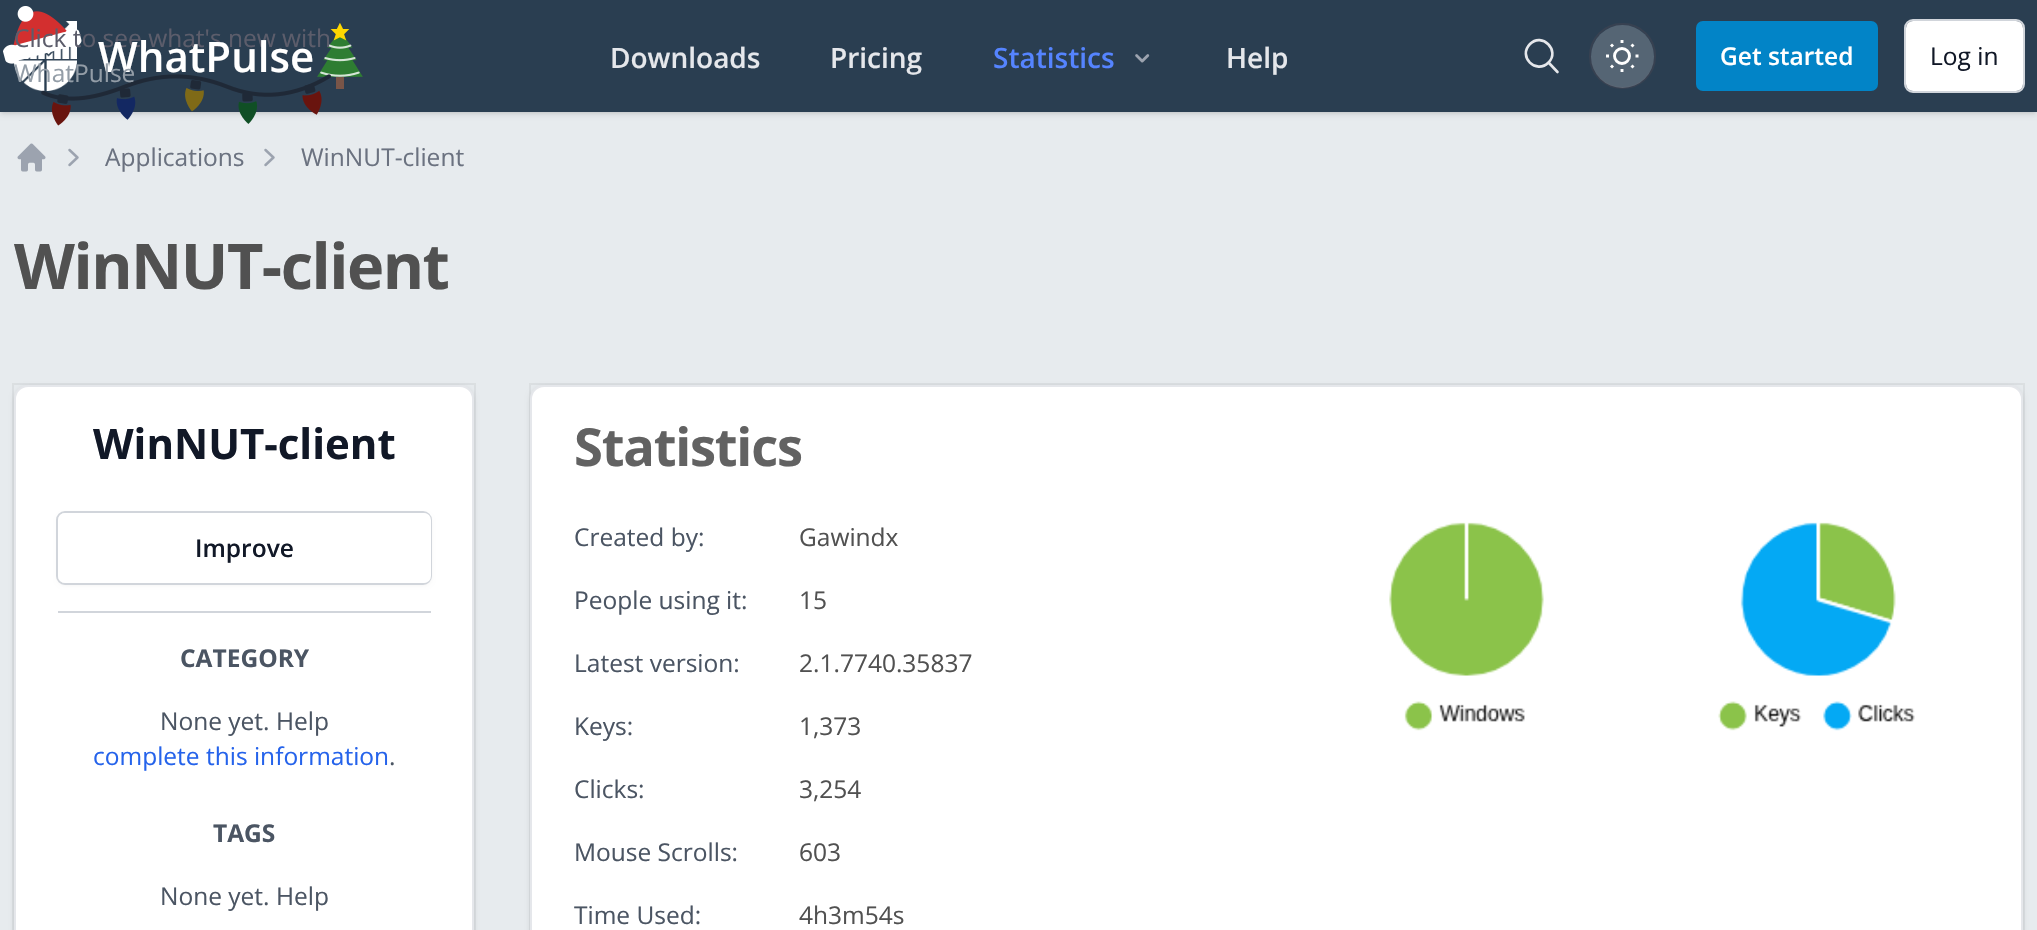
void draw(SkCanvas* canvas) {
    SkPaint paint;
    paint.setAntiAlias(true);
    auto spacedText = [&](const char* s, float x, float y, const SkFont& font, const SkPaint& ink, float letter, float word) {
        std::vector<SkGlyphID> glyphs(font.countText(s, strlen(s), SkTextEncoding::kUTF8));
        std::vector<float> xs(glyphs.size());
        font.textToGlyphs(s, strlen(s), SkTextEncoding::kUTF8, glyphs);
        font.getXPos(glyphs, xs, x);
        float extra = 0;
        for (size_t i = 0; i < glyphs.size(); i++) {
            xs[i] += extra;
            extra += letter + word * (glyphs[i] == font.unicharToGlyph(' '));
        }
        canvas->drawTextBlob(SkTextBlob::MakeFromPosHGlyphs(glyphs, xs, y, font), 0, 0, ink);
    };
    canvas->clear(0xFFE7EBEE);
    paint.setColor(0x1A000000);
    paint.setMaskFilter(SkMaskFilter::MakeBlur(kNormal_SkBlurStyle, 2));
    canvas->drawRect(SkRect::MakeXYWH(2, 4, 2033, 108), paint);
    paint.setMaskFilter(nullptr);
    paint.setMaskFilter(SkMaskFilter::MakeBlur(kNormal_SkBlurStyle, 2.5f));
    canvas->drawRect(SkRect::MakeXYWH(0, 2, 2037, 112), paint);
    paint.setMaskFilter(nullptr);
    paint.setColor(0xFF2A3E51);
    canvas->drawRect(SkRect::MakeXYWH(0, 0, 2037, 112), paint);
    canvas->drawImageRect(SkImages::DeferredFromEncodedData(SkData::MakeFromFileName("img2.png")), SkRect::MakeXYWH(14, 21, 63, 70), SkSamplingOptions());
    canvas->drawImageRect(SkImages::DeferredFromEncodedData(SkData::MakeFromFileName("img1.png")), SkRect::MakeXYWH(3, 6, 79, 58), SkSamplingOptions());
    canvas->drawImageRect(SkImages::DeferredFromEncodedData(SkData::MakeFromFileName("img3.png")), SkRect::MakeXYWH(317, 23, 46, 66), SkSamplingOptions());
    SkFont font1(fontMgr->matchFamilyStyle("Open Sans", SkFontStyle::Normal()), 24.5f);
    font1.setSubpixel(true);
    paint.setColor(0xFF5C5D6B);
    canvas->drawString("Click to see what's new with", 14, 47, font1, paint);
    SkFont font2(fontMgr->matchFamilyStyle("Open Sans", SkFontStyle(600, SkFontStyle::kNormal_Width, SkFontStyle::kUpright_Slant)), 42);
    font2.setSubpixel(true);
    paint.setColor(0xFFFFFFFF);
    canvas->drawString("WhatPulse", 98, 72, font2, paint);
    canvas->drawImageRect(SkImages::DeferredFromEncodedData(SkData::MakeFromFileName("img4.png")), SkRect::MakeXYWH(41, 74, 290, 52), SkSamplingOptions());
    paint.setColor(0xFF939DA7);
    canvas->drawString("WhatPulse", 14, 82, font1, paint);
    SkFont font3(fontMgr->matchFamilyStyle("Open Sans", SkFontStyle(600, SkFontStyle::kNormal_Width, SkFontStyle::kUpright_Slant)), 28);
    font3.setSubpixel(true);
    paint.setColor(0xFFE5E7EB);
    canvas->drawString("Downloads", 610, 68, font3, paint);
    canvas->drawString("Pricing", 830, 68, font3, paint);
    paint.setColor(0xFF5584FF);
    canvas->drawString("Statistics", 993, 68, font3, paint);
    canvas->drawImageRect(SkImages::DeferredFromEncodedData(SkData::MakeFromFileName("img5.png")), SkRect::MakeXYWH(1135, 54, 15, 9), SkSamplingOptions());
    paint.setColor(0xFFE5E7EB);
    canvas->drawString("Help", 1226, 68, font3, paint);
    paint.setStyle(SkPaint::kStroke_Style);
    paint.setStrokeWidth(2.6f);
    paint.setStrokeCap(SkPaint::kRound_Cap);
    paint.setStrokeJoin(SkPaint::kRound_Join);
    canvas->drawPath(SkPathBuilder().moveTo(1557.5f, 72).lineTo(1548.5f, 62.5f).moveTo(1548.5f, 62.5f).cubicTo(1560.5f, 50.5f, 1542, 32, 1530, 44).cubicTo(1517.5f, 56.5f, 1536, 75, 1548.5f, 62.5f).close().detach(), paint);
    paint.setStrokeWidth(2);
    paint.setStrokeCap(SkPaint::kButt_Cap);
    paint.setStrokeJoin(SkPaint::kMiter_Join);
    paint.setColor(0xFF374151);
    canvas->drawRoundRect(SkRect::MakeXYWH(1590, 24, 65, 64), 32, 32, paint);
    paint.setStyle(SkPaint::kFill_Style);
    paint.setColor(0x33FFFFFF);
    canvas->drawCircle(1622.5f, 56.5f, 31.5f, paint);
    paint.setStyle(SkPaint::kStroke_Style);
    paint.setStrokeWidth(2.9f);
    paint.setColor(0xFFFFFFFF);
    canvas->drawCircle(1622, 56, 7.5f, paint);
    canvas->drawPath(SkPathBuilder().moveTo(1622, 40).lineTo(1622, 43).moveTo(1622, 69).lineTo(1622, 72).moveTo(1611, 44.5f).lineTo(1613, 46.5f).moveTo(1631.5f, 65.5f).lineTo(1633.5f, 67.5f).moveTo(1606, 56).lineTo(1609, 56).moveTo(1635.5f, 56).lineTo(1638.5f, 56).moveTo(1611, 67.5f).lineTo(1613, 65.5f).moveTo(1631.5f, 46.5f).lineTo(1633.5f, 44.5f).detach(), paint);
    paint.setStyle(SkPaint::kFill_Style);
    paint.setColor(0xFF0284C7);
    canvas->drawRoundRect(SkRect::MakeXYWH(1696, 21, 182, 70), 7, 7, paint);
    SkFont font4(fontMgr->matchFamilyStyle("Open Sans", SkFontStyle(600, SkFontStyle::kNormal_Width, SkFontStyle::kUpright_Slant)), 24.5f);
    font4.setSubpixel(true);
    paint.setColor(0xFFFFFFFF);
    canvas->drawString("Get started", 1720, 65, font4, paint);
    paint.setStyle(SkPaint::kStroke_Style);
    paint.setStrokeWidth(2);
    paint.setColor(0xFFD1D5DB);
    canvas->drawRoundRect(SkRect::MakeXYWH(1905, 20, 119, 72), 8, 8, paint);
    paint.setStyle(SkPaint::kFill_Style);
    paint.setColor(0xFFFFFFFF);
    canvas->drawRoundRect(SkRect::MakeXYWH(1906, 21, 117, 70), 7, 7, paint);
    paint.setColor(0xFF111827);
    canvas->drawString("Log in", 1930, 65, font1, paint);
    canvas->drawImageRect(SkImages::DeferredFromEncodedData(SkData::MakeFromFileName("img6.png")), SkRect::MakeXYWH(17, 143, 29, 29), SkSamplingOptions());
    canvas->drawImageRect(SkImages::DeferredFromEncodedData(SkData::MakeFromFileName("img7.png")), SkRect::MakeXYWH(68, 148, 11, 19), SkSamplingOptions());
    paint.setColor(0xFF6B7280);
    canvas->drawString("Applications", 105, 166, font1, paint);
    canvas->drawImageRect(SkImages::DeferredFromEncodedData(SkData::MakeFromFileName("img7.png")), SkRect::MakeXYWH(264, 148, 11, 19), SkSamplingOptions());
    canvas->drawString("WinNUT-client", 301, 166, font1, paint);
    SkFont font5(fontMgr->matchFamilyStyle("Open Sans", SkFontStyle::Bold()), 63);
    font5.setSubpixel(true);
    paint.setColor(0xFF515151);
    spacedText("WinNUT-client", 14, 289, font5, paint, -1.5f, 0);
    paint.setColor(0x1A000000);
    paint.setMaskFilter(SkMaskFilter::MakeBlur(kNormal_SkBlurStyle, 2.5f));
    canvas->drawRoundRect(SkRect::MakeXYWH(14, 387, 460, 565), 14, 14, paint);
    paint.setMaskFilter(nullptr);
    paint.setStyle(SkPaint::kStroke_Style);
    paint.setColor(0x0D000000);
    canvas->drawRect(SkRect::MakeXYWH(13, 384, 462, 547), paint);
    paint.setStyle(SkPaint::kFill_Style);
    paint.setColor(0xFFFFFFFF);
    canvas->drawRoundRect(SkRect::MakeXYWH(15, 386, 458, 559), 13, 13, paint);
    paint.setStyle(SkPaint::kStroke_Style);
    paint.setColor(0xFFE5E7EB);
    canvas->drawRoundRect(SkRect::MakeXYWH(15, 386, 458, 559), 13, 13, paint);
    SkFont font6(fontMgr->matchFamilyStyle("Open Sans", SkFontStyle::Bold()), 42);
    font6.setSubpixel(true);
    paint.setStyle(SkPaint::kFill_Style);
    paint.setColor(0xFF111827);
    canvas->drawString("WinNUT-client", 93, 459, font6, paint);
    paint.setColor(0x0D000000);
    paint.setMaskFilter(SkMaskFilter::MakeBlur(kNormal_SkBlurStyle, 2));
    canvas->drawRoundRect(SkRect::MakeXYWH(58, 515, 373, 70), 7, 7, paint);
    paint.setMaskFilter(nullptr);
    paint.setStyle(SkPaint::kStroke_Style);
    paint.setColor(0xFFD1D5DB);
    canvas->drawRoundRect(SkRect::MakeXYWH(57, 512, 374, 72), 8, 8, paint);
    paint.setStyle(SkPaint::kFill_Style);
    paint.setColor(0xFFFFFFFF);
    canvas->drawRoundRect(SkRect::MakeXYWH(58, 513, 373, 70), 7, 7, paint);
    paint.setColor(0xFF111827);
    canvas->drawString("Improve", 195, 557, font4, paint);
    paint.setColor(0xFFD1D5DB);
    canvas->drawRect(SkRect::MakeXYWH(58, 611, 373, 2), paint);
    SkFont font7(fontMgr->matchFamilyStyle("Open Sans", SkFontStyle::Bold()), 24.5f);
    font7.setSubpixel(true);
    paint.setColor(0xFF4B5563);
    canvas->drawString("CATEGORY", 180, 667, font7, paint);
    canvas->drawString("None yet. Help", 160, 730, font1, paint);
    paint.setColor(0xFF2563EB);
    canvas->drawString("complete this information", 93, 765, font1, paint);
    paint.setColor(0xFF4B5563);
    canvas->drawString(".", 389, 765, font1, paint);
    canvas->drawString("TAGS", 213, 842, font7, paint);
    canvas->drawString("None yet. Help", 160, 905, font1, paint);
    paint.setColor(0x1A000000);
    paint.setMaskFilter(SkMaskFilter::MakeBlur(kNormal_SkBlurStyle, 2.5f));
    canvas->drawRoundRect(SkRect::MakeXYWH(530, 387, 1493, 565), 14, 14, paint);
    paint.setMaskFilter(nullptr);
    paint.setStyle(SkPaint::kStroke_Style);
    paint.setColor(0x0D000000);
    canvas->drawRect(SkRect::MakeXYWH(530, 384, 1494, 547), paint);
    paint.setStyle(SkPaint::kFill_Style);
    paint.setColor(0xFFFFFFFF);
    canvas->drawRoundRect(SkRect::MakeXYWH(531, 386, 1491, 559), 13, 13, paint);
    paint.setStyle(SkPaint::kStroke_Style);
    paint.setColor(0xFFE5E7EB);
    canvas->drawRoundRect(SkRect::MakeXYWH(531, 386, 1491, 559), 13, 13, paint);
    SkFont font8(fontMgr->matchFamilyStyle("Open Sans", SkFontStyle::Bold()), 52.5f);
    font8.setSubpixel(true);
    paint.setStyle(SkPaint::kFill_Style);
    paint.setColor(0xFF626262);
    spacedText("Statistics", 574, 466, font8, paint, -1.25f, 0);
    paint.setColor(0xFF4B5563);
    canvas->drawString("Created by:", 574, 546, font1, paint);
    paint.setColor(0xFF515151);
    canvas->drawString("Gawindx", 799, 546, font1, paint);
    paint.setColor(0xFF4B5563);
    canvas->drawString("People using it:", 574, 609, font1, paint);
    paint.setColor(0xFF515151);
    canvas->drawString("15", 799, 609, font1, paint);
    paint.setColor(0xFF4B5563);
    canvas->drawString("Latest version:", 574, 672, font1, paint);
    paint.setColor(0xFF515151);
    canvas->drawString("2.1.7740.35837", 799, 672, font1, paint);
    paint.setColor(0xFF4B5563);
    canvas->drawString("Keys:", 574, 735, font1, paint);
    paint.setColor(0xFF515151);
    canvas->drawString("1,373", 799, 735, font1, paint);
    paint.setColor(0xFF4B5563);
    canvas->drawString("Clicks:", 574, 798, font1, paint);
    paint.setColor(0xFF515151);
    canvas->drawString("3,254", 799, 798, font1, paint);
    paint.setColor(0xFF4B5563);
    canvas->drawString("Mouse Scrolls:", 574, 861, font1, paint);
    paint.setColor(0xFF515151);
    canvas->drawString("603", 799, 861, font1, paint);
    paint.setColor(0xFF4B5563);
    canvas->drawString("Time Used:", 574, 924, font1, paint);
    paint.setColor(0xFF515151);
    canvas->drawString("4h3m54s", 799, 924, font1, paint);
    canvas->drawImageRect(SkImages::DeferredFromEncodedData(SkData::MakeFromFileName("img8.png")), SkRect::MakeXYWH(1389, 522, 155, 209), SkSamplingOptions());
    canvas->drawImageRect(SkImages::DeferredFromEncodedData(SkData::MakeFromFileName("img9.png")), SkRect::MakeXYWH(1718, 522, 197, 209), SkSamplingOptions());
}
